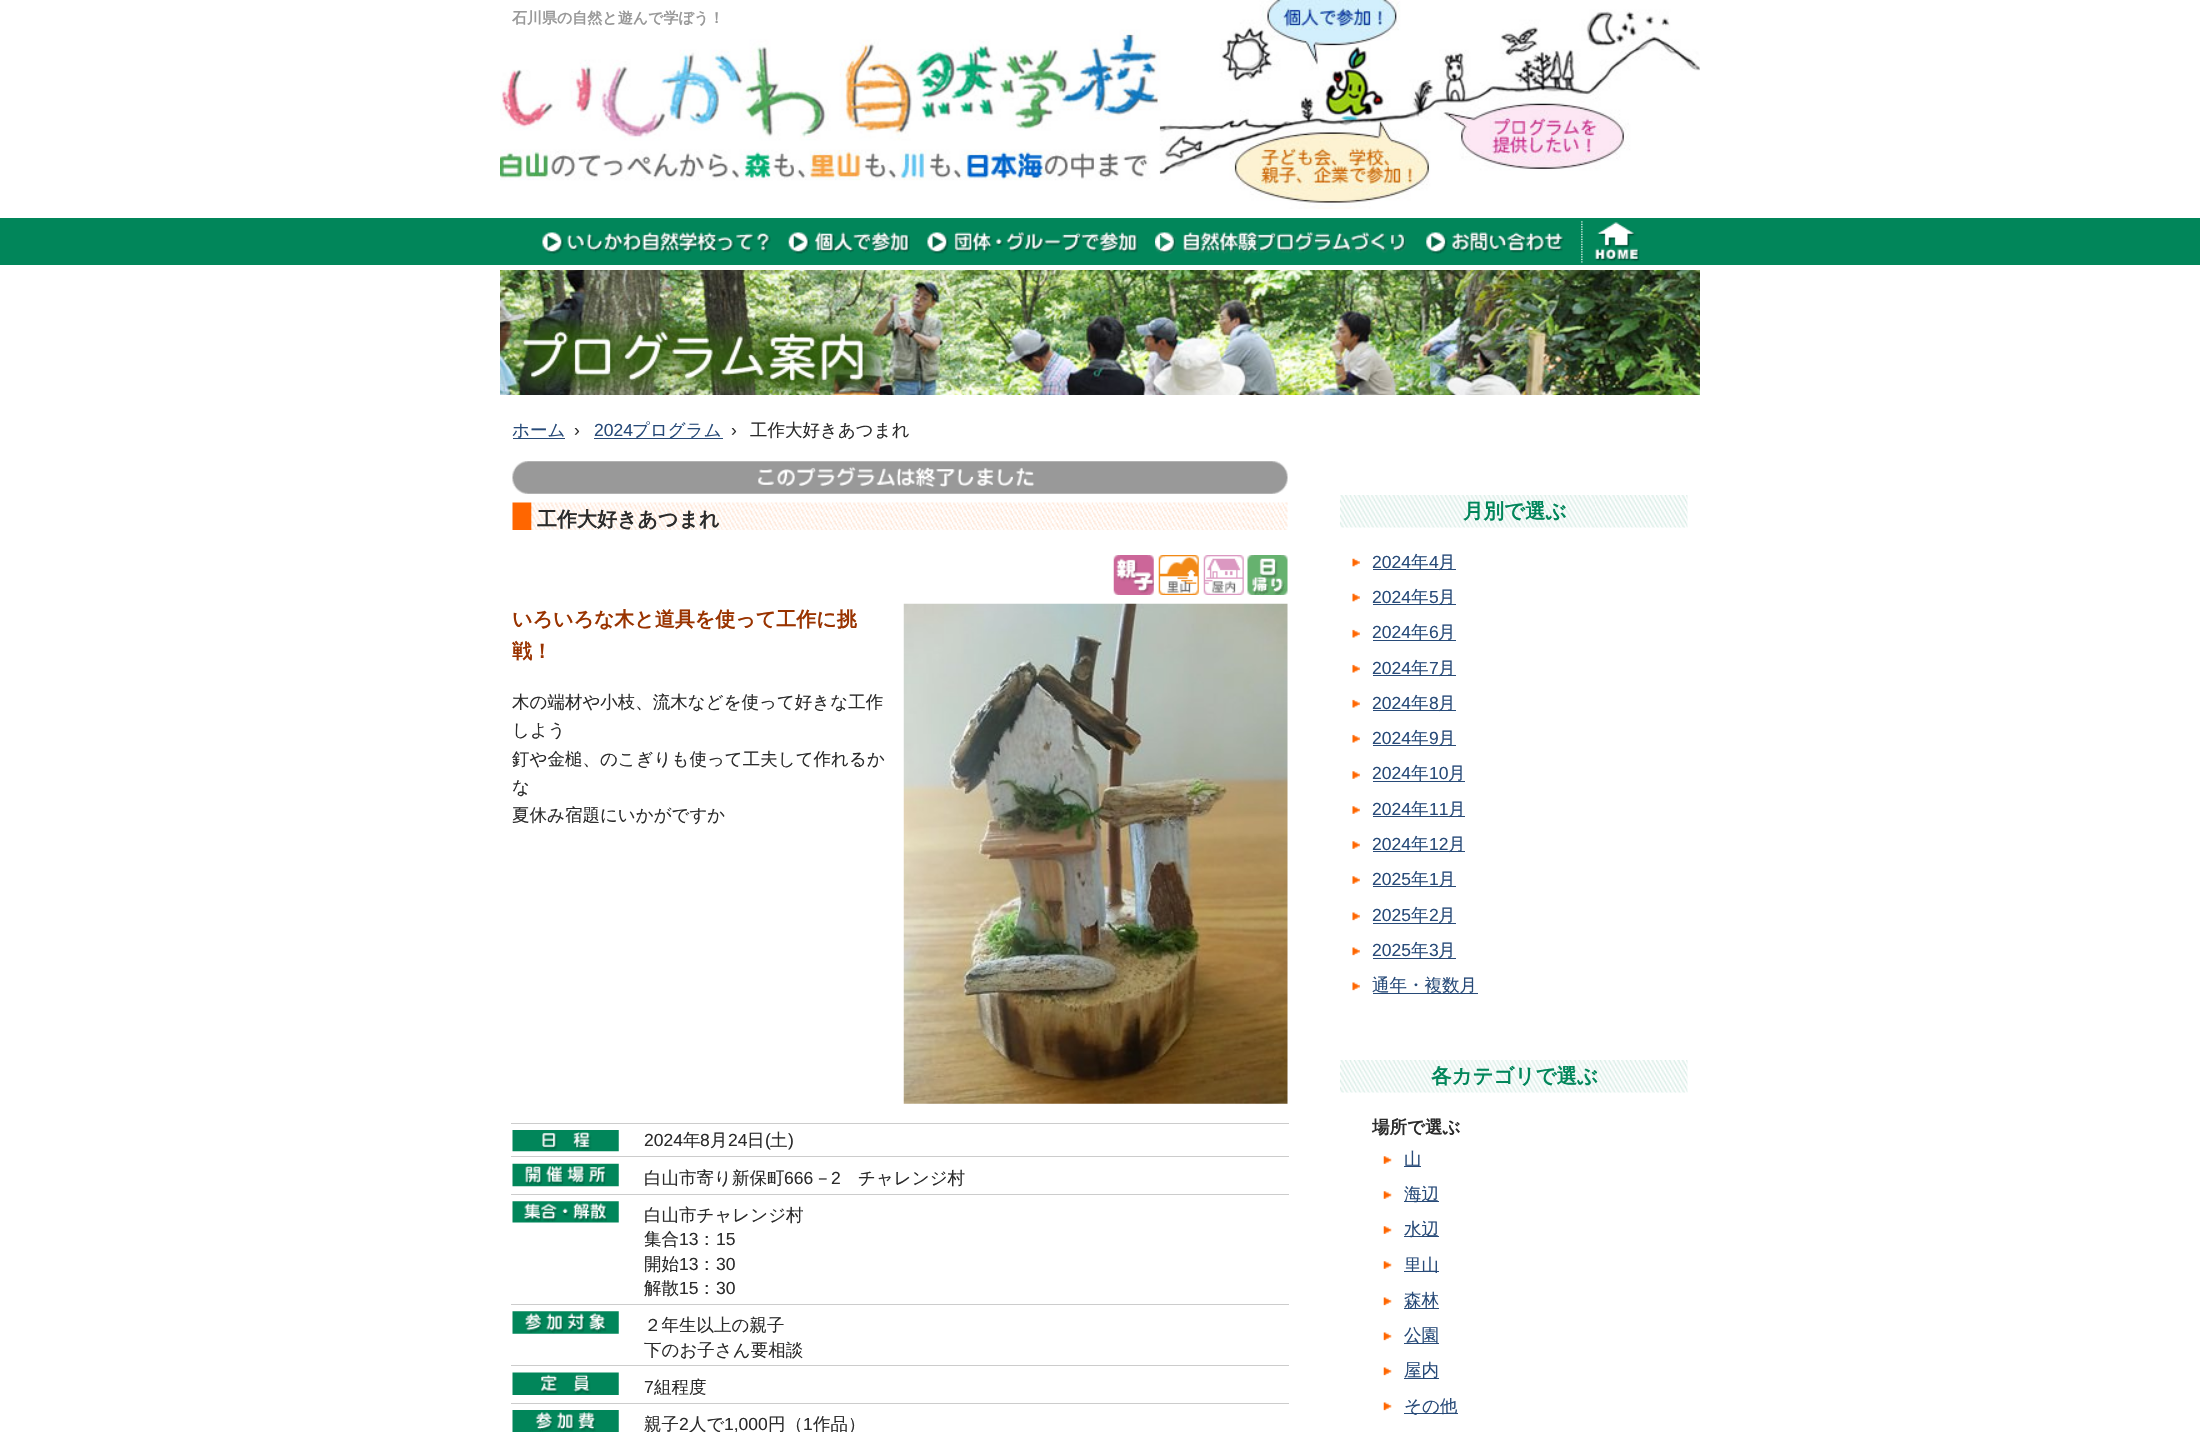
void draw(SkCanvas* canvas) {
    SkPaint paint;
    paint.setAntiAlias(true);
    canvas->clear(0xFFFFFFFF);
    canvas->drawImageRect(SkImages::DeferredFromEncodedData(SkData::MakeFromFileName("img1.png")), SkRect::MakeXYWH(500, 0, 1200, 209), SkSamplingOptions());
    SkFont font1(fontMgr->matchFamilyStyle("WenQuanYi Zen Hei", SkFontStyle::Bold()), 15);
    font1.setSubpixel(true);
    paint.setColor(0xFF999999);
    canvas->drawString("石川県の自然と遊んで学ぼう！", 512, 23, font1, paint);
    paint.setColor(0xFF01865A);
    canvas->drawRect(SkRect::MakeXYWH(0, 218, 2200, 47), paint);
    canvas->drawImageRect(SkImages::DeferredFromEncodedData(SkData::MakeFromFileName("img2.png")), SkRect::MakeXYWH(542, 232, 229, 22), SkSamplingOptions());
    canvas->drawImageRect(SkImages::DeferredFromEncodedData(SkData::MakeFromFileName("img3.png")), SkRect::MakeXYWH(788, 232, 122, 22), SkSamplingOptions());
    canvas->drawImageRect(SkImages::DeferredFromEncodedData(SkData::MakeFromFileName("img4.png")), SkRect::MakeXYWH(927, 232, 211, 22), SkSamplingOptions());
    canvas->drawImageRect(SkImages::DeferredFromEncodedData(SkData::MakeFromFileName("img5.png")), SkRect::MakeXYWH(1155, 232, 252, 22), SkSamplingOptions());
    canvas->drawImageRect(SkImages::DeferredFromEncodedData(SkData::MakeFromFileName("img6.png")), SkRect::MakeXYWH(1426, 232, 138, 22), SkSamplingOptions());
    canvas->drawImageRect(SkImages::DeferredFromEncodedData(SkData::MakeFromFileName("img7.png")), SkRect::MakeXYWH(1581, 221, 59, 42), SkSamplingOptions());
    canvas->drawImageRect(SkImages::DeferredFromEncodedData(SkData::MakeFromFileName("img8.png")), SkRect::MakeXYWH(500, 270, 1200, 125), SkSamplingOptions());
    SkFont font2(fontMgr->matchFamilyStyle("WenQuanYi Zen Hei", SkFontStyle(500, SkFontStyle::kNormal_Width, SkFontStyle::kUpright_Slant)), 17.5f);
    font2.setSubpixel(true);
    paint.setColor(0xFF274A78);
    canvas->drawString("ホーム", 512, 436, font2, paint);
    canvas->drawRect(SkRect::MakeXYWH(513, 438, 52, 1), paint);
    SkFont font3(fontMgr->matchFamilyStyle("Liberation Sans", SkFontStyle::Normal()), 17.5f);
    font3.setSubpixel(true);
    paint.setColor(0xFF2B2B2B);
    canvas->drawString("›", 574, 436, font3, paint);
    paint.setColor(0xFF274A78);
    canvas->drawString("2024", 594, 436, font3, paint);
    canvas->drawRect(SkRect::MakeXYWH(594, 438, 129, 1), paint);
    canvas->drawString("プログラム", 632, 436, font2, paint);
    paint.setColor(0xFF2B2B2B);
    canvas->drawString("›", 731, 436, font3, paint);
    canvas->drawString("工作大好きあつまれ", 750, 436, font2, paint);
    canvas->drawImageRect(SkImages::DeferredFromEncodedData(SkData::MakeFromFileName("img9.png")), SkRect::MakeXYWH(512, 461, 776, 33), SkSamplingOptions());
    canvas->drawImageRect(SkImages::DeferredFromEncodedData(SkData::MakeFromFileName("img10.png")), SkRect::MakeXYWH(512, 502, 776, 28), SkSamplingOptions());
    SkFont font4(fontMgr->matchFamilyStyle("WenQuanYi Zen Hei", SkFontStyle::Bold()), 20);
    font4.setSubpixel(true);
    canvas->drawString("工作大好きあつまれ", 537, 526, font4, paint);
    canvas->drawImageRect(SkImages::DeferredFromEncodedData(SkData::MakeFromFileName("img11.png")), SkRect::MakeXYWH(1113, 555, 41, 40), SkSamplingOptions());
    canvas->drawImageRect(SkImages::DeferredFromEncodedData(SkData::MakeFromFileName("img12.png")), SkRect::MakeXYWH(1158, 555, 41, 40), SkSamplingOptions());
    canvas->drawImageRect(SkImages::DeferredFromEncodedData(SkData::MakeFromFileName("img13.png")), SkRect::MakeXYWH(1203, 555, 41, 40), SkSamplingOptions());
    canvas->drawImageRect(SkImages::DeferredFromEncodedData(SkData::MakeFromFileName("img14.png")), SkRect::MakeXYWH(1247, 555, 41, 40), SkSamplingOptions());
    paint.setColor(0xFF993300);
    canvas->drawString("いろいろな木と道具を使って工作に挑", 512, 626, font4, paint);
    canvas->drawString("戦！", 512, 658, font4, paint);
    canvas->drawImageRect(SkImages::DeferredFromEncodedData(SkData::MakeFromFileName("img15.png")), SkRect::MakeXYWH(903, 603, 385, 501), SkSamplingOptions());
    paint.setColor(0xFF2B2B2B);
    canvas->drawString("木の端材や小枝、流木などを使って好きな工作", 512, 708, font2, paint);
    canvas->drawString("しよう", 512, 736, font2, paint);
    canvas->drawString("釘や金槌、のこぎりも使って工夫して作れるか", 512, 765, font2, paint);
    canvas->drawString("な", 512, 793, font2, paint);
    canvas->drawString("夏休み宿題にいかがですか", 512, 821, font2, paint);
    paint.setColor(0xFFCCCCCC);
    canvas->drawRect(SkRect::MakeXYWH(511, 1123, 778, 1), paint);
    canvas->drawImageRect(SkImages::DeferredFromEncodedData(SkData::MakeFromFileName("img16.png")), SkRect::MakeXYWH(512, 1130, 107, 22), SkSamplingOptions());
    paint.setColor(0xFF2B2B2B);
    canvas->drawString("2024", 644, 1146, font3, paint);
    canvas->drawString("年", 683, 1146, font2, paint);
    canvas->drawString("8", 700, 1146, font3, paint);
    canvas->drawString("月", 710, 1146, font2, paint);
    canvas->drawString("24", 728, 1146, font3, paint);
    canvas->drawString("日", 747, 1146, font2, paint);
    canvas->drawString("(", 765, 1146, font3, paint);
    canvas->drawString("土", 770, 1146, font2, paint);
    canvas->drawString(")", 788, 1146, font3, paint);
    paint.setColor(0xFFCCCCCC);
    canvas->drawRect(SkRect::MakeXYWH(511, 1156, 778, 1), paint);
    canvas->drawImageRect(SkImages::DeferredFromEncodedData(SkData::MakeFromFileName("img17.png")), SkRect::MakeXYWH(512, 1163, 107, 24), SkSamplingOptions());
    paint.setColor(0xFF2B2B2B);
    canvas->drawString("白山市寄り新保町", 644, 1184, font2, paint);
    canvas->drawString("666", 784, 1184, font3, paint);
    canvas->drawString("－", 814, 1184, font2, paint);
    canvas->drawString("2", 831, 1184, font3, paint);
    canvas->drawString("チャレンジ村", 858, 1184, font2, paint);
    paint.setColor(0xFFCCCCCC);
    canvas->drawRect(SkRect::MakeXYWH(511, 1194, 778, 1), paint);
    canvas->drawImageRect(SkImages::DeferredFromEncodedData(SkData::MakeFromFileName("img18.png")), SkRect::MakeXYWH(512, 1201, 107, 22), SkSamplingOptions());
    paint.setColor(0xFF2B2B2B);
    canvas->drawString("白山市チャレンジ村", 644, 1221, font2, paint);
    canvas->drawString("集合", 644, 1245, font2, paint);
    canvas->drawString("13", 679, 1245, font3, paint);
    canvas->drawString("：", 698, 1245, font2, paint);
    canvas->drawString("15", 716, 1245, font3, paint);
    canvas->drawString("開始", 644, 1270, font2, paint);
    canvas->drawString("13", 679, 1270, font3, paint);
    canvas->drawString("：", 698, 1270, font2, paint);
    canvas->drawString("30", 716, 1270, font3, paint);
    canvas->drawString("解散", 644, 1294, font2, paint);
    canvas->drawString("15", 679, 1294, font3, paint);
    canvas->drawString("：", 698, 1294, font2, paint);
    canvas->drawString("30", 716, 1294, font3, paint);
    paint.setColor(0xFFCCCCCC);
    canvas->drawRect(SkRect::MakeXYWH(511, 1304, 778, 1), paint);
    canvas->drawImageRect(SkImages::DeferredFromEncodedData(SkData::MakeFromFileName("img19.png")), SkRect::MakeXYWH(512, 1311, 107, 23), SkSamplingOptions());
    paint.setColor(0xFF2B2B2B);
    canvas->drawString("２年生以上の親子", 644, 1331, font2, paint);
    canvas->drawString("下のお子さん要相談", 644, 1356, font2, paint);
    paint.setColor(0xFFCCCCCC);
    canvas->drawRect(SkRect::MakeXYWH(511, 1365, 778, 1), paint);
    canvas->drawImageRect(SkImages::DeferredFromEncodedData(SkData::MakeFromFileName("img20.png")), SkRect::MakeXYWH(512, 1372, 107, 23), SkSamplingOptions());
    paint.setColor(0xFF2B2B2B);
    canvas->drawString("7", 644, 1393, font3, paint);
    canvas->drawString("組程度", 654, 1393, font2, paint);
    paint.setColor(0xFFCCCCCC);
    canvas->drawRect(SkRect::MakeXYWH(511, 1403, 778, 1), paint);
    canvas->drawImageRect(SkImages::DeferredFromEncodedData(SkData::MakeFromFileName("img21.png")), SkRect::MakeXYWH(512, 1410, 107, 22), SkSamplingOptions());
    paint.setColor(0xFF2B2B2B);
    canvas->drawString("親子", 644, 1430, font2, paint);
    canvas->drawString("2", 679, 1430, font3, paint);
    canvas->drawString("人で", 689, 1430, font2, paint);
    canvas->drawString("1,000", 724, 1430, font3, paint);
    canvas->drawString("円（", 768, 1430, font2, paint);
    canvas->drawString("1", 803, 1430, font3, paint);
    canvas->drawString("作品）", 813, 1430, font2, paint);
    canvas->drawImageRect(SkImages::DeferredFromEncodedData(SkData::MakeFromFileName("img22.png")), SkRect::MakeXYWH(1340, 495, 348, 33), SkSamplingOptions());
    SkFont font5(fontMgr->matchFamilyStyle("WenQuanYi Zen Hei", SkFontStyle::Bold()), 20.5f);
    font5.setSubpixel(true);
    paint.setColor(0xFF01865A);
    canvas->drawString("月別で選ぶ", 1463, 518, font5, paint);
    canvas->drawImageRect(SkImages::DeferredFromEncodedData(SkData::MakeFromFileName("img23.png")), SkRect::MakeXYWH(1352, 558, 8, 9), SkSamplingOptions());
    paint.setColor(0xFF274A78);
    canvas->drawString("2024", 1372, 568, font3, paint);
    canvas->drawRect(SkRect::MakeXYWH(1373, 569, 83, 1), paint);
    canvas->drawString("年", 1411, 568, font2, paint);
    canvas->drawString("4", 1429, 568, font3, paint);
    canvas->drawString("月", 1438, 568, font2, paint);
    canvas->drawImageRect(SkImages::DeferredFromEncodedData(SkData::MakeFromFileName("img23.png")), SkRect::MakeXYWH(1352, 593, 8, 9), SkSamplingOptions());
    canvas->drawString("2024", 1372, 603, font3, paint);
    canvas->drawRect(SkRect::MakeXYWH(1373, 604, 83, 1), paint);
    canvas->drawString("年", 1411, 603, font2, paint);
    canvas->drawString("5", 1429, 603, font3, paint);
    canvas->drawString("月", 1438, 603, font2, paint);
    canvas->drawImageRect(SkImages::DeferredFromEncodedData(SkData::MakeFromFileName("img24.png")), SkRect::MakeXYWH(1352, 629, 8, 9), SkSamplingOptions());
    canvas->drawString("2024", 1372, 638, font3, paint);
    canvas->drawRect(SkRect::MakeXYWH(1373, 640, 83, 1), paint);
    canvas->drawString("年", 1411, 638, font2, paint);
    canvas->drawString("6", 1429, 638, font3, paint);
    canvas->drawString("月", 1438, 638, font2, paint);
    canvas->drawImageRect(SkImages::DeferredFromEncodedData(SkData::MakeFromFileName("img24.png")), SkRect::MakeXYWH(1352, 664, 8, 9), SkSamplingOptions());
    canvas->drawString("2024", 1372, 674, font3, paint);
    canvas->drawRect(SkRect::MakeXYWH(1373, 675, 83, 1), paint);
    canvas->drawString("年", 1411, 674, font2, paint);
    canvas->drawString("7", 1429, 674, font3, paint);
    canvas->drawString("月", 1438, 674, font2, paint);
    canvas->drawImageRect(SkImages::DeferredFromEncodedData(SkData::MakeFromFileName("img24.png")), SkRect::MakeXYWH(1352, 699, 8, 9), SkSamplingOptions());
    canvas->drawString("2024", 1372, 709, font3, paint);
    canvas->drawRect(SkRect::MakeXYWH(1373, 710, 83, 1), paint);
    canvas->drawString("年", 1411, 709, font2, paint);
    canvas->drawString("8", 1429, 709, font3, paint);
    canvas->drawString("月", 1438, 709, font2, paint);
    canvas->drawImageRect(SkImages::DeferredFromEncodedData(SkData::MakeFromFileName("img24.png")), SkRect::MakeXYWH(1352, 734, 8, 9), SkSamplingOptions());
    canvas->drawString("2024", 1372, 744, font3, paint);
    canvas->drawRect(SkRect::MakeXYWH(1373, 745, 83, 1), paint);
    canvas->drawString("年", 1411, 744, font2, paint);
    canvas->drawString("9", 1429, 744, font3, paint);
    canvas->drawString("月", 1438, 744, font2, paint);
    canvas->drawImageRect(SkImages::DeferredFromEncodedData(SkData::MakeFromFileName("img25.png")), SkRect::MakeXYWH(1352, 771, 8, 8), SkSamplingOptions());
    canvas->drawString("2024", 1372, 779, font3, paint);
    canvas->drawRect(SkRect::MakeXYWH(1373, 781, 92, 1), paint);
    canvas->drawString("年", 1411, 779, font2, paint);
    canvas->drawString("10", 1429, 779, font3, paint);
    canvas->drawString("月", 1448, 779, font2, paint);
    canvas->drawImageRect(SkImages::DeferredFromEncodedData(SkData::MakeFromFileName("img25.png")), SkRect::MakeXYWH(1352, 806, 8, 8), SkSamplingOptions());
    canvas->drawString("2024", 1372, 815, font3, paint);
    canvas->drawRect(SkRect::MakeXYWH(1373, 816, 92, 1), paint);
    canvas->drawString("年", 1411, 815, font2, paint);
    canvas->drawString("11", 1429, 815, font3, paint);
    canvas->drawString("月", 1448, 815, font2, paint);
    canvas->drawImageRect(SkImages::DeferredFromEncodedData(SkData::MakeFromFileName("img25.png")), SkRect::MakeXYWH(1352, 841, 8, 8), SkSamplingOptions());
    canvas->drawString("2024", 1372, 850, font3, paint);
    canvas->drawRect(SkRect::MakeXYWH(1373, 851, 92, 1), paint);
    canvas->drawString("年", 1411, 850, font2, paint);
    canvas->drawString("12", 1429, 850, font3, paint);
    canvas->drawString("月", 1448, 850, font2, paint);
    canvas->drawImageRect(SkImages::DeferredFromEncodedData(SkData::MakeFromFileName("img25.png")), SkRect::MakeXYWH(1352, 876, 8, 8), SkSamplingOptions());
    canvas->drawString("2025", 1372, 885, font3, paint);
    canvas->drawRect(SkRect::MakeXYWH(1373, 886, 83, 1), paint);
    canvas->drawString("年", 1411, 885, font2, paint);
    canvas->drawString("1", 1429, 885, font3, paint);
    canvas->drawString("月", 1438, 885, font2, paint);
    canvas->drawImageRect(SkImages::DeferredFromEncodedData(SkData::MakeFromFileName("img26.png")), SkRect::MakeXYWH(1352, 912, 8, 9), SkSamplingOptions());
    canvas->drawString("2025", 1372, 921, font3, paint);
    canvas->drawRect(SkRect::MakeXYWH(1373, 923, 83, 1), paint);
    canvas->drawString("年", 1411, 921, font2, paint);
    canvas->drawString("2", 1429, 921, font3, paint);
    canvas->drawString("月", 1438, 921, font2, paint);
    canvas->drawImageRect(SkImages::DeferredFromEncodedData(SkData::MakeFromFileName("img26.png")), SkRect::MakeXYWH(1352, 947, 8, 9), SkSamplingOptions());
    canvas->drawString("2025", 1372, 956, font3, paint);
    canvas->drawRect(SkRect::MakeXYWH(1373, 958, 83, 1), paint);
    canvas->drawString("年", 1411, 956, font2, paint);
    canvas->drawString("3", 1429, 956, font3, paint);
    canvas->drawString("月", 1438, 956, font2, paint);
    canvas->drawImageRect(SkImages::DeferredFromEncodedData(SkData::MakeFromFileName("img26.png")), SkRect::MakeXYWH(1352, 982, 8, 9), SkSamplingOptions());
    canvas->drawRect(SkRect::MakeXYWH(1373, 993, 105, 1), paint);
    canvas->drawString("通年・複数月", 1372, 991, font2, paint);
    canvas->drawImageRect(SkImages::DeferredFromEncodedData(SkData::MakeFromFileName("img22.png")), SkRect::MakeXYWH(1340, 1060, 348, 33), SkSamplingOptions());
    paint.setColor(0xFF01865A);
    canvas->drawString("各カテゴリで選ぶ", 1431, 1083, font5, paint);
    SkFont font6(fontMgr->matchFamilyStyle("WenQuanYi Zen Hei", SkFontStyle::Bold()), 17.5f);
    font6.setSubpixel(true);
    paint.setColor(0xFF2B2B2B);
    canvas->drawString("場所で選ぶ", 1372, 1133, font6, paint);
    canvas->drawImageRect(SkImages::DeferredFromEncodedData(SkData::MakeFromFileName("img27.png")), SkRect::MakeXYWH(1383, 1156, 9, 8), SkSamplingOptions());
    paint.setColor(0xFF274A78);
    canvas->drawRect(SkRect::MakeXYWH(1404, 1166, 17, 1), paint);
    canvas->drawString("山", 1404, 1165, font2, paint);
    canvas->drawImageRect(SkImages::DeferredFromEncodedData(SkData::MakeFromFileName("img27.png")), SkRect::MakeXYWH(1383, 1191, 9, 8), SkSamplingOptions());
    canvas->drawRect(SkRect::MakeXYWH(1404, 1201, 35, 1), paint);
    canvas->drawString("海辺", 1404, 1200, font2, paint);
    canvas->drawImageRect(SkImages::DeferredFromEncodedData(SkData::MakeFromFileName("img27.png")), SkRect::MakeXYWH(1383, 1226, 9, 8), SkSamplingOptions());
    canvas->drawRect(SkRect::MakeXYWH(1404, 1236, 35, 1), paint);
    canvas->drawString("水辺", 1404, 1235, font2, paint);
    canvas->drawImageRect(SkImages::DeferredFromEncodedData(SkData::MakeFromFileName("img27.png")), SkRect::MakeXYWH(1383, 1261, 9, 8), SkSamplingOptions());
    canvas->drawRect(SkRect::MakeXYWH(1404, 1271, 35, 1), paint);
    canvas->drawString("里山", 1404, 1271, font2, paint);
    canvas->drawImageRect(SkImages::DeferredFromEncodedData(SkData::MakeFromFileName("img28.png")), SkRect::MakeXYWH(1383, 1297, 9, 9), SkSamplingOptions());
    canvas->drawRect(SkRect::MakeXYWH(1404, 1308, 35, 1), paint);
    canvas->drawString("森林", 1404, 1306, font2, paint);
    canvas->drawImageRect(SkImages::DeferredFromEncodedData(SkData::MakeFromFileName("img28.png")), SkRect::MakeXYWH(1383, 1332, 9, 9), SkSamplingOptions());
    canvas->drawRect(SkRect::MakeXYWH(1404, 1343, 35, 1), paint);
    canvas->drawString("公園", 1404, 1341, font2, paint);
    canvas->drawImageRect(SkImages::DeferredFromEncodedData(SkData::MakeFromFileName("img28.png")), SkRect::MakeXYWH(1383, 1367, 9, 9), SkSamplingOptions());
    canvas->drawRect(SkRect::MakeXYWH(1404, 1378, 35, 1), paint);
    canvas->drawString("屋内", 1404, 1376, font2, paint);
    canvas->drawImageRect(SkImages::DeferredFromEncodedData(SkData::MakeFromFileName("img28.png")), SkRect::MakeXYWH(1383, 1402, 9, 9), SkSamplingOptions());
    canvas->drawRect(SkRect::MakeXYWH(1404, 1413, 54, 1), paint);
    canvas->drawString("その他", 1404, 1412, font2, paint);
}
